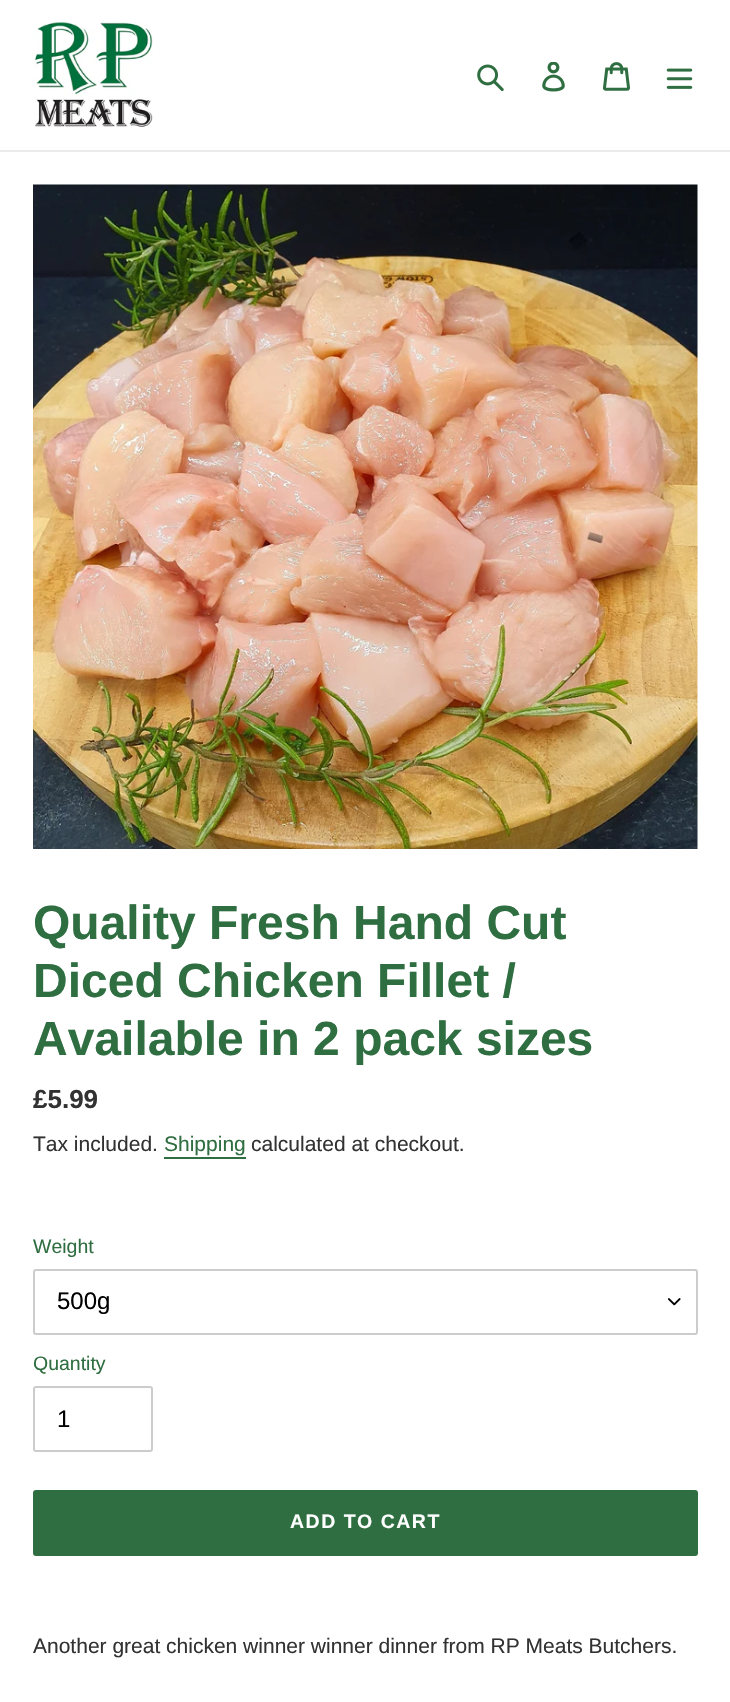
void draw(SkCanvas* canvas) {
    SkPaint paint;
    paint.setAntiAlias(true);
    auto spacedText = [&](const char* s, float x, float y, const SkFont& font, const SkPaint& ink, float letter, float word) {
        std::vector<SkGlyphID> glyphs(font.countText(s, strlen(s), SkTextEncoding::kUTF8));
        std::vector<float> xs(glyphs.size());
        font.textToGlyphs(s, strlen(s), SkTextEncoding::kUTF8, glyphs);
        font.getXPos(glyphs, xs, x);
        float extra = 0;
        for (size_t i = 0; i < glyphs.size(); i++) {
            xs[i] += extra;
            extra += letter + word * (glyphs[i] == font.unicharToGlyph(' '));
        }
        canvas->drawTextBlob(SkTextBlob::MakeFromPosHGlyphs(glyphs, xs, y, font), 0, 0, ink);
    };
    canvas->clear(0xFFFFFFFF);
    paint.setColor(0xFFEBEBEB);
    canvas->drawRect(SkRect::MakeXYWH(0, 150, 730, 2), paint);
    canvas->drawImageRect(SkImages::DeferredFromEncodedData(SkData::MakeFromFileName("img1.png")), SkRect::MakeXYWH(33, 22, 120, 105), SkSamplingOptions());
    canvas->drawImageRect(SkImages::DeferredFromEncodedData(SkData::MakeFromFileName("img2.png")), SkRect::MakeXYWH(477, 64, 27, 28), SkSamplingOptions());
    canvas->drawImageRect(SkImages::DeferredFromEncodedData(SkData::MakeFromFileName("img3.png")), SkRect::MakeXYWH(542, 62, 23, 30), SkSamplingOptions());
    canvas->drawImageRect(SkImages::DeferredFromEncodedData(SkData::MakeFromFileName("img4.png")), SkRect::MakeXYWH(603, 62, 27, 29), SkSamplingOptions());
    canvas->drawImageRect(SkImages::DeferredFromEncodedData(SkData::MakeFromFileName("img5.png")), SkRect::MakeXYWH(666, 68, 27, 21), SkSamplingOptions());
    canvas->drawImageRect(SkImages::DeferredFromEncodedData(SkData::MakeFromFileName("img6.png")), SkRect::MakeXYWH(33, 184, 665, 665), SkSamplingOptions());
    SkFont font1(fontMgr->matchFamilyStyle("Liberation Sans", SkFontStyle::Bold()), 48);
    font1.setSubpixel(true);
    paint.setColor(0xFF2F6E41);
    canvas->drawString("Quality Fresh Hand Cut", 33, 939, font1, paint);
    canvas->drawString("Diced Chicken Fillet /", 33, 997, font1, paint);
    canvas->drawString("Available in 2 pack sizes", 33, 1055, font1, paint);
    SkFont font2(fontMgr->matchFamilyStyle("Liberation Sans", SkFontStyle::Bold()), 26);
    font2.setSubpixel(true);
    paint.setColor(0xFF333232);
    canvas->drawString("£5.99", 33, 1108, font2, paint);
    SkFont font3(fontMgr->matchFamilyStyle("Liberation Sans", SkFontStyle::Normal()), 21);
    font3.setSubpixel(true);
    canvas->drawString("Tax included.", 33, 1151, font3, paint);
    paint.setColor(0xFF2F6E41);
    canvas->drawString("Shipping", 164, 1151, font3, paint);
    canvas->drawRect(SkRect::MakeXYWH(164, 1157, 82, 2), paint);
    paint.setColor(0xFF333232);
    canvas->drawString("calculated at checkout.", 251, 1151, font3, paint);
    SkFont font4(fontMgr->matchFamilyStyle("Liberation Sans", SkFontStyle::Normal()), 19.5f);
    font4.setSubpixel(true);
    paint.setColor(0xFF2F6E41);
    canvas->drawString("Weight", 33, 1253, font4, paint);
    canvas->drawImageRect(SkImages::DeferredFromEncodedData(SkData::MakeFromFileName("img7.png")), SkRect::MakeXYWH(668, 1298, 13, 8), SkSamplingOptions());
    paint.setStyle(SkPaint::kStroke_Style);
    paint.setStrokeWidth(2);
    paint.setColor(0xFFCCCCCC);
    canvas->drawRoundRect(SkRect::MakeXYWH(34, 1270, 663, 64), 2, 2, paint);
    SkFont font5(fontMgr->matchFamilyStyle("Liberation Sans", SkFontStyle::Normal()), 24);
    font5.setSubpixel(true);
    paint.setStyle(SkPaint::kFill_Style);
    paint.setColor(0xFF000000);
    canvas->drawString("500g", 57, 1309, font5, paint);
    paint.setColor(0xFF2F6E41);
    canvas->drawString("Quantity", 33, 1370, font4, paint);
    paint.setStyle(SkPaint::kStroke_Style);
    paint.setColor(0xFFCCCCCC);
    canvas->drawRoundRect(SkRect::MakeXYWH(34, 1387, 118, 64), 2, 2, paint);
    paint.setStyle(SkPaint::kFill_Style);
    paint.setColor(0xFF000000);
    canvas->drawString("1", 57, 1427, font5, paint);
    paint.setColor(0xFF2F6E41);
    canvas->drawRoundRect(SkRect::MakeXYWH(33, 1490, 665, 66), 3, 3, paint);
    SkFont font6(fontMgr->matchFamilyStyle("Liberation Sans", SkFontStyle::Bold()), 19.5f);
    font6.setSubpixel(true);
    paint.setColor(0xFFFFFFFF);
    spacedText("ADD TO CART", 290, 1528, font6, paint, 1.5f, 0);
    paint.setColor(0xFF333232);
    canvas->drawString("Another great chicken winner winner dinner from RP Meats Butchers.", 33, 1653, font3, paint);
}
